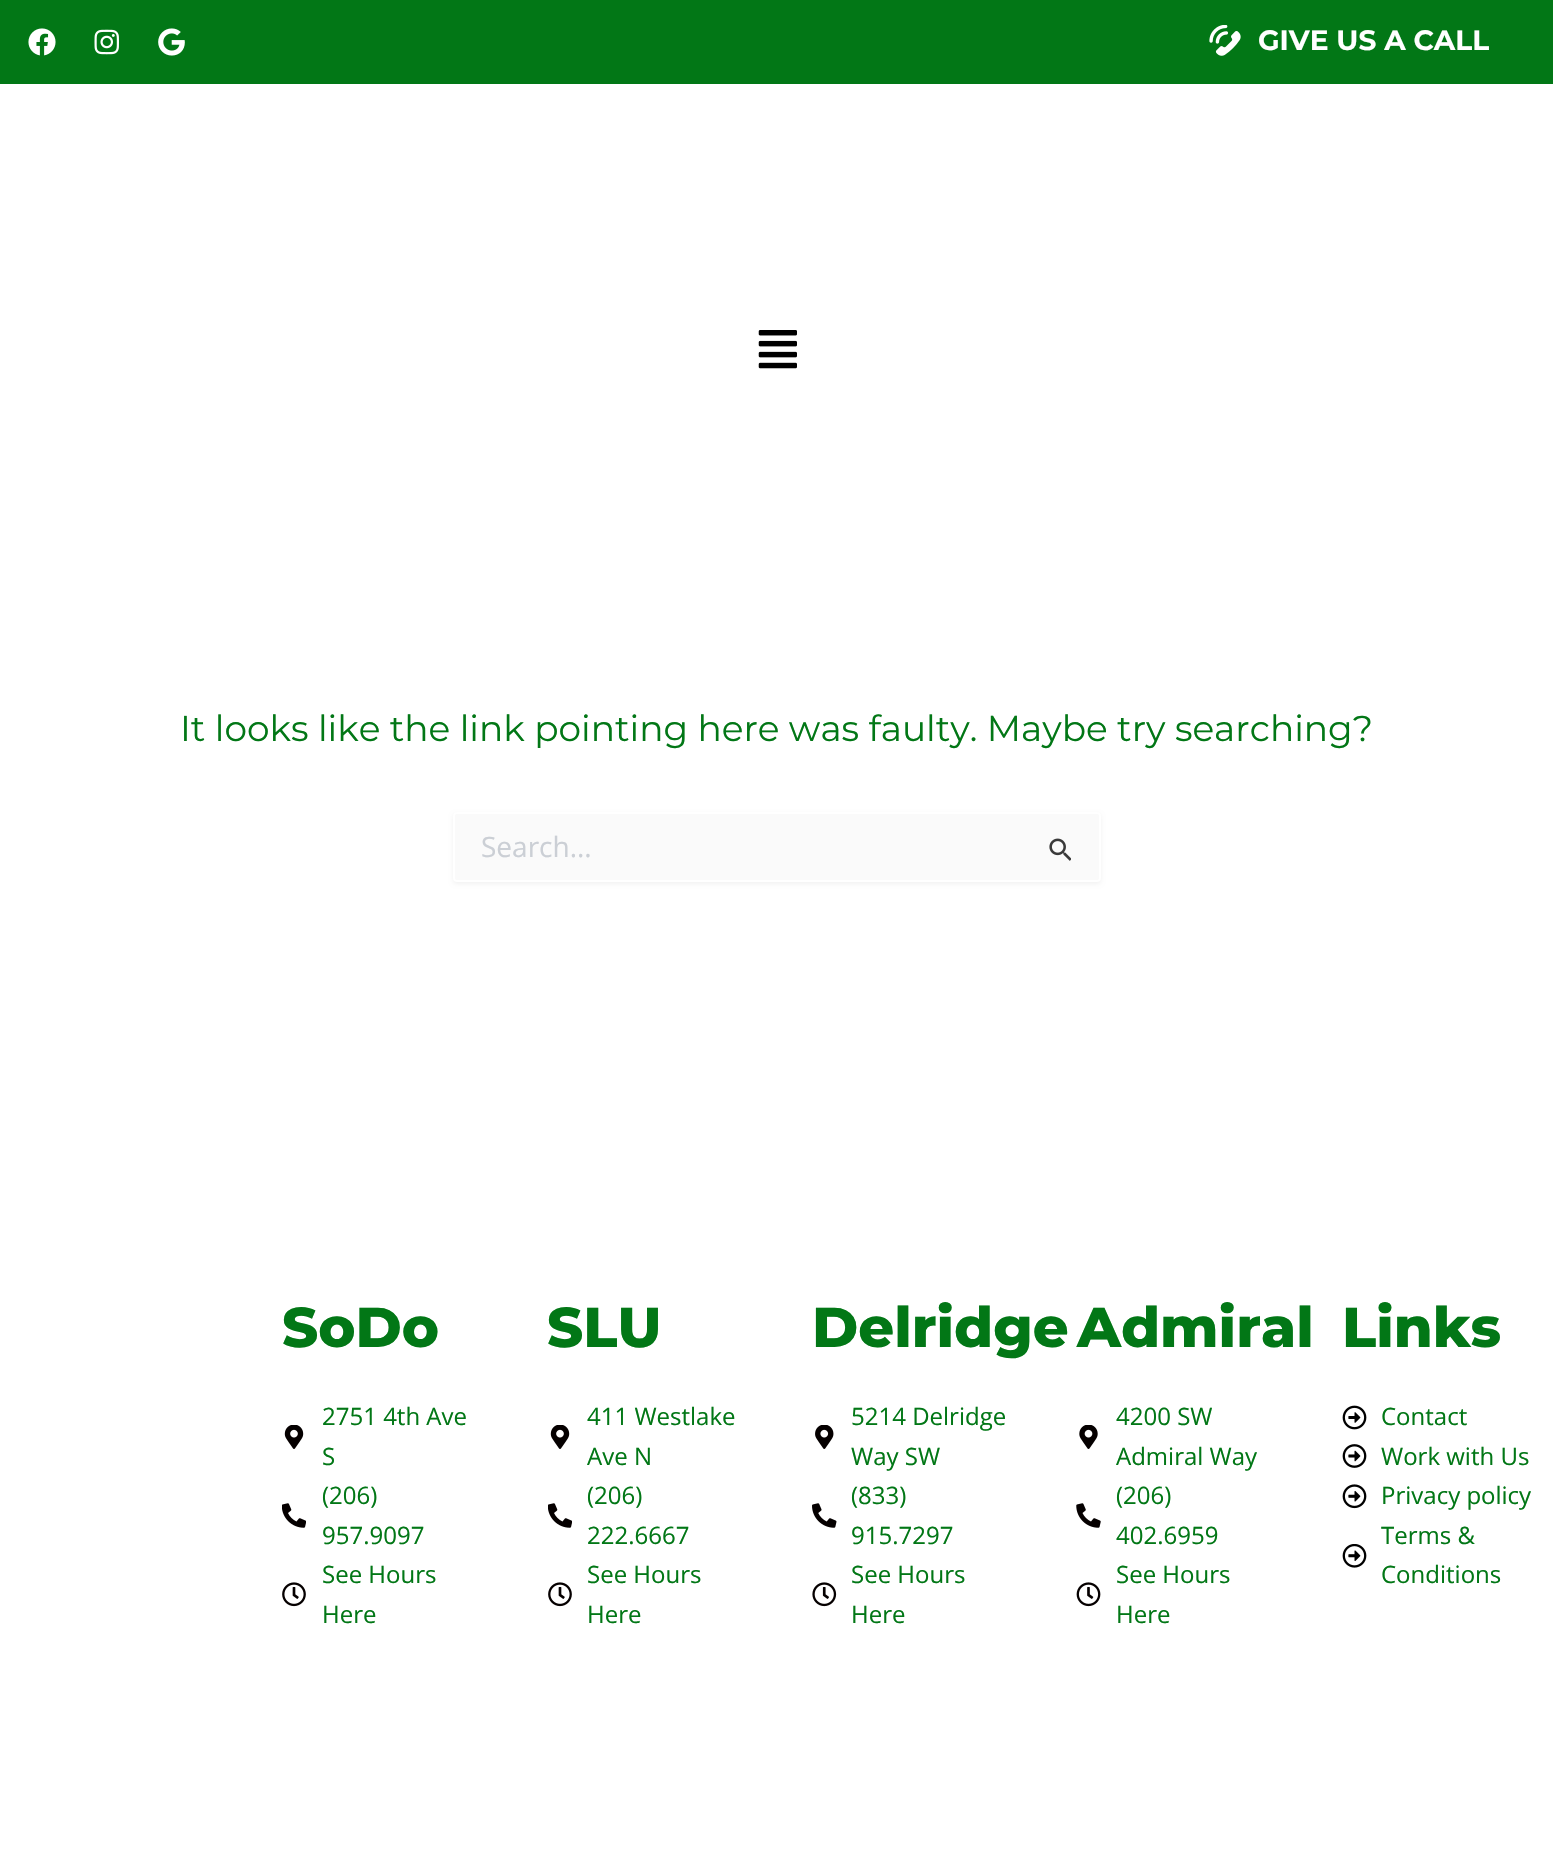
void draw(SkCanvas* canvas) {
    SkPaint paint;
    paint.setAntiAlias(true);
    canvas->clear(0xFFFFFFFF);
    paint.setColor(0xFF027716);
    canvas->drawRect(SkRect::MakeXYWH(0, 0, 1553, 84), paint);
    canvas->drawImageRect(SkImages::DeferredFromEncodedData(SkData::MakeFromFileName("img1.png")), SkRect::MakeXYWH(28, 28, 28, 28), SkSamplingOptions());
    canvas->drawImageRect(SkImages::DeferredFromEncodedData(SkData::MakeFromFileName("img2.png")), SkRect::MakeXYWH(94, 29, 25, 26), SkSamplingOptions());
    canvas->drawImageRect(SkImages::DeferredFromEncodedData(SkData::MakeFromFileName("img3.png")), SkRect::MakeXYWH(158, 28, 27, 28), SkSamplingOptions());
    canvas->drawImageRect(SkImages::DeferredFromEncodedData(SkData::MakeFromFileName("img4.png")), SkRect::MakeXYWH(1209, 25, 32, 31), SkSamplingOptions());
    SkFont font1(fontMgr->matchFamilyStyle("Montserrat", SkFontStyle::Bold()), 28);
    font1.setSubpixel(true);
    paint.setColor(0xFFFFFFFF);
    canvas->drawString("GIVE US A CALL", 1258, 50, font1, paint);
    canvas->drawImageRect(SkImages::DeferredFromEncodedData(SkData::MakeFromFileName("img5.png")), SkRect::MakeXYWH(758, 330, 39, 39), SkSamplingOptions());
    SkFont font2(fontMgr->matchFamilyStyle("Montserrat", SkFontStyle::Normal()), 35.9f);
    font2.setSubpixel(true);
    paint.setColor(0xFF027716);
    canvas->drawString("It looks like the link pointing here was faulty. Maybe try searching?", 180, 741, font2, paint);
    paint.setColor(0x0D000000);
    paint.setMaskFilter(SkMaskFilter::MakeBlur(kNormal_SkBlurStyle, 2));
    canvas->drawRoundRect(SkRect::MakeXYWH(453, 814, 648, 70), 4, 4, paint);
    paint.setMaskFilter(nullptr);
    paint.setColor(0xFFFAFAFA);
    canvas->drawRoundRect(SkRect::MakeXYWH(454, 813, 646, 68), 3, 3, paint);
    paint.setStyle(SkPaint::kStroke_Style);
    paint.setStrokeWidth(2);
    paint.setColor(0xFFFFFFFF);
    canvas->drawRoundRect(SkRect::MakeXYWH(454, 813, 646, 68), 3, 3, paint);
    SkFont font3(fontMgr->matchFamilyStyle("Open Sans", SkFontStyle::Normal()), 28);
    font3.setSubpixel(true);
    paint.setStyle(SkPaint::kFill_Style);
    paint.setColor(0xFFCBCFD5);
    canvas->drawString("Search...", 481, 857, font3, paint);
    canvas->drawImageRect(SkImages::DeferredFromEncodedData(SkData::MakeFromFileName("img6.png")), SkRect::MakeXYWH(1049, 838, 22, 23), SkSamplingOptions());
    SkFont font4(fontMgr->matchFamilyStyle("Montserrat", SkFontStyle(800, SkFontStyle::kNormal_Width, SkFontStyle::kUpright_Slant)), 56);
    font4.setSubpixel(true);
    paint.setColor(0xFF027716);
    canvas->drawString("SoDo", 282, 1347, font4, paint);
    canvas->drawImageRect(SkImages::DeferredFromEncodedData(SkData::MakeFromFileName("img7.png")), SkRect::MakeXYWH(284, 1425, 20, 24), SkSamplingOptions());
    SkFont font5(fontMgr->matchFamilyStyle("Open Sans", SkFontStyle::Normal()), 24);
    font5.setSubpixel(true);
    canvas->drawString("2751 4th Ave", 322, 1425, font5, paint);
    canvas->drawString("S", 322, 1465, font5, paint);
    canvas->drawImageRect(SkImages::DeferredFromEncodedData(SkData::MakeFromFileName("img8.png")), SkRect::MakeXYWH(282, 1503, 24, 25), SkSamplingOptions());
    canvas->drawString("(206)", 322, 1504, font5, paint);
    canvas->drawString("957.9097", 322, 1544, font5, paint);
    canvas->drawImageRect(SkImages::DeferredFromEncodedData(SkData::MakeFromFileName("img9.png")), SkRect::MakeXYWH(282, 1582, 24, 25), SkSamplingOptions());
    canvas->drawString("See Hours", 322, 1583, font5, paint);
    canvas->drawString("Here", 322, 1623, font5, paint);
    canvas->drawString("SLU", 547, 1347, font4, paint);
    canvas->drawImageRect(SkImages::DeferredFromEncodedData(SkData::MakeFromFileName("img7.png")), SkRect::MakeXYWH(550, 1425, 20, 24), SkSamplingOptions());
    canvas->drawString("411 Westlake", 587, 1425, font5, paint);
    canvas->drawString("Ave N", 587, 1465, font5, paint);
    canvas->drawImageRect(SkImages::DeferredFromEncodedData(SkData::MakeFromFileName("img8.png")), SkRect::MakeXYWH(548, 1503, 24, 25), SkSamplingOptions());
    canvas->drawString("(206)", 587, 1504, font5, paint);
    canvas->drawString("222.6667", 587, 1544, font5, paint);
    canvas->drawImageRect(SkImages::DeferredFromEncodedData(SkData::MakeFromFileName("img9.png")), SkRect::MakeXYWH(548, 1582, 24, 25), SkSamplingOptions());
    canvas->drawString("See Hours", 587, 1583, font5, paint);
    canvas->drawString("Here", 587, 1623, font5, paint);
    canvas->drawString("Delridge", 812, 1347, font4, paint);
    canvas->drawImageRect(SkImages::DeferredFromEncodedData(SkData::MakeFromFileName("img10.png")), SkRect::MakeXYWH(815, 1425, 19, 24), SkSamplingOptions());
    canvas->drawString("5214 Delridge", 851, 1425, font5, paint);
    canvas->drawString("Way SW", 851, 1465, font5, paint);
    canvas->drawImageRect(SkImages::DeferredFromEncodedData(SkData::MakeFromFileName("img11.png")), SkRect::MakeXYWH(812, 1503, 25, 25), SkSamplingOptions());
    canvas->drawString("(833)", 851, 1504, font5, paint);
    canvas->drawString("915.7297", 851, 1544, font5, paint);
    canvas->drawImageRect(SkImages::DeferredFromEncodedData(SkData::MakeFromFileName("img12.png")), SkRect::MakeXYWH(812, 1582, 25, 25), SkSamplingOptions());
    canvas->drawString("See Hours", 851, 1583, font5, paint);
    canvas->drawString("Here", 851, 1623, font5, paint);
    canvas->drawString("Admiral", 1077, 1347, font4, paint);
    canvas->drawImageRect(SkImages::DeferredFromEncodedData(SkData::MakeFromFileName("img13.png")), SkRect::MakeXYWH(1079, 1425, 19, 24), SkSamplingOptions());
    canvas->drawString("4200 SW", 1116, 1425, font5, paint);
    canvas->drawString("Admiral Way", 1116, 1465, font5, paint);
    canvas->drawImageRect(SkImages::DeferredFromEncodedData(SkData::MakeFromFileName("img14.png")), SkRect::MakeXYWH(1076, 1503, 25, 25), SkSamplingOptions());
    canvas->drawString("(206)", 1116, 1504, font5, paint);
    canvas->drawString("402.6959", 1116, 1544, font5, paint);
    canvas->drawImageRect(SkImages::DeferredFromEncodedData(SkData::MakeFromFileName("img15.png")), SkRect::MakeXYWH(1076, 1582, 25, 25), SkSamplingOptions());
    canvas->drawString("See Hours", 1116, 1583, font5, paint);
    canvas->drawString("Here", 1116, 1623, font5, paint);
    canvas->drawString("Links", 1342, 1347, font4, paint);
    canvas->drawImageRect(SkImages::DeferredFromEncodedData(SkData::MakeFromFileName("img16.png")), SkRect::MakeXYWH(1342, 1405, 25, 25), SkSamplingOptions());
    canvas->drawString("Contact", 1381, 1425, font5, paint);
    canvas->drawImageRect(SkImages::DeferredFromEncodedData(SkData::MakeFromFileName("img17.png")), SkRect::MakeXYWH(1342, 1444, 25, 24), SkSamplingOptions());
    canvas->drawString("Work with Us", 1381, 1465, font5, paint);
    canvas->drawImageRect(SkImages::DeferredFromEncodedData(SkData::MakeFromFileName("img18.png")), SkRect::MakeXYWH(1342, 1484, 25, 25), SkSamplingOptions());
    canvas->drawString("Privacy policy", 1381, 1504, font5, paint);
    canvas->drawImageRect(SkImages::DeferredFromEncodedData(SkData::MakeFromFileName("img19.png")), SkRect::MakeXYWH(1342, 1544, 25, 24), SkSamplingOptions());
    canvas->drawString("Terms &", 1381, 1544, font5, paint);
    canvas->drawString("Conditions", 1381, 1583, font5, paint);
}
